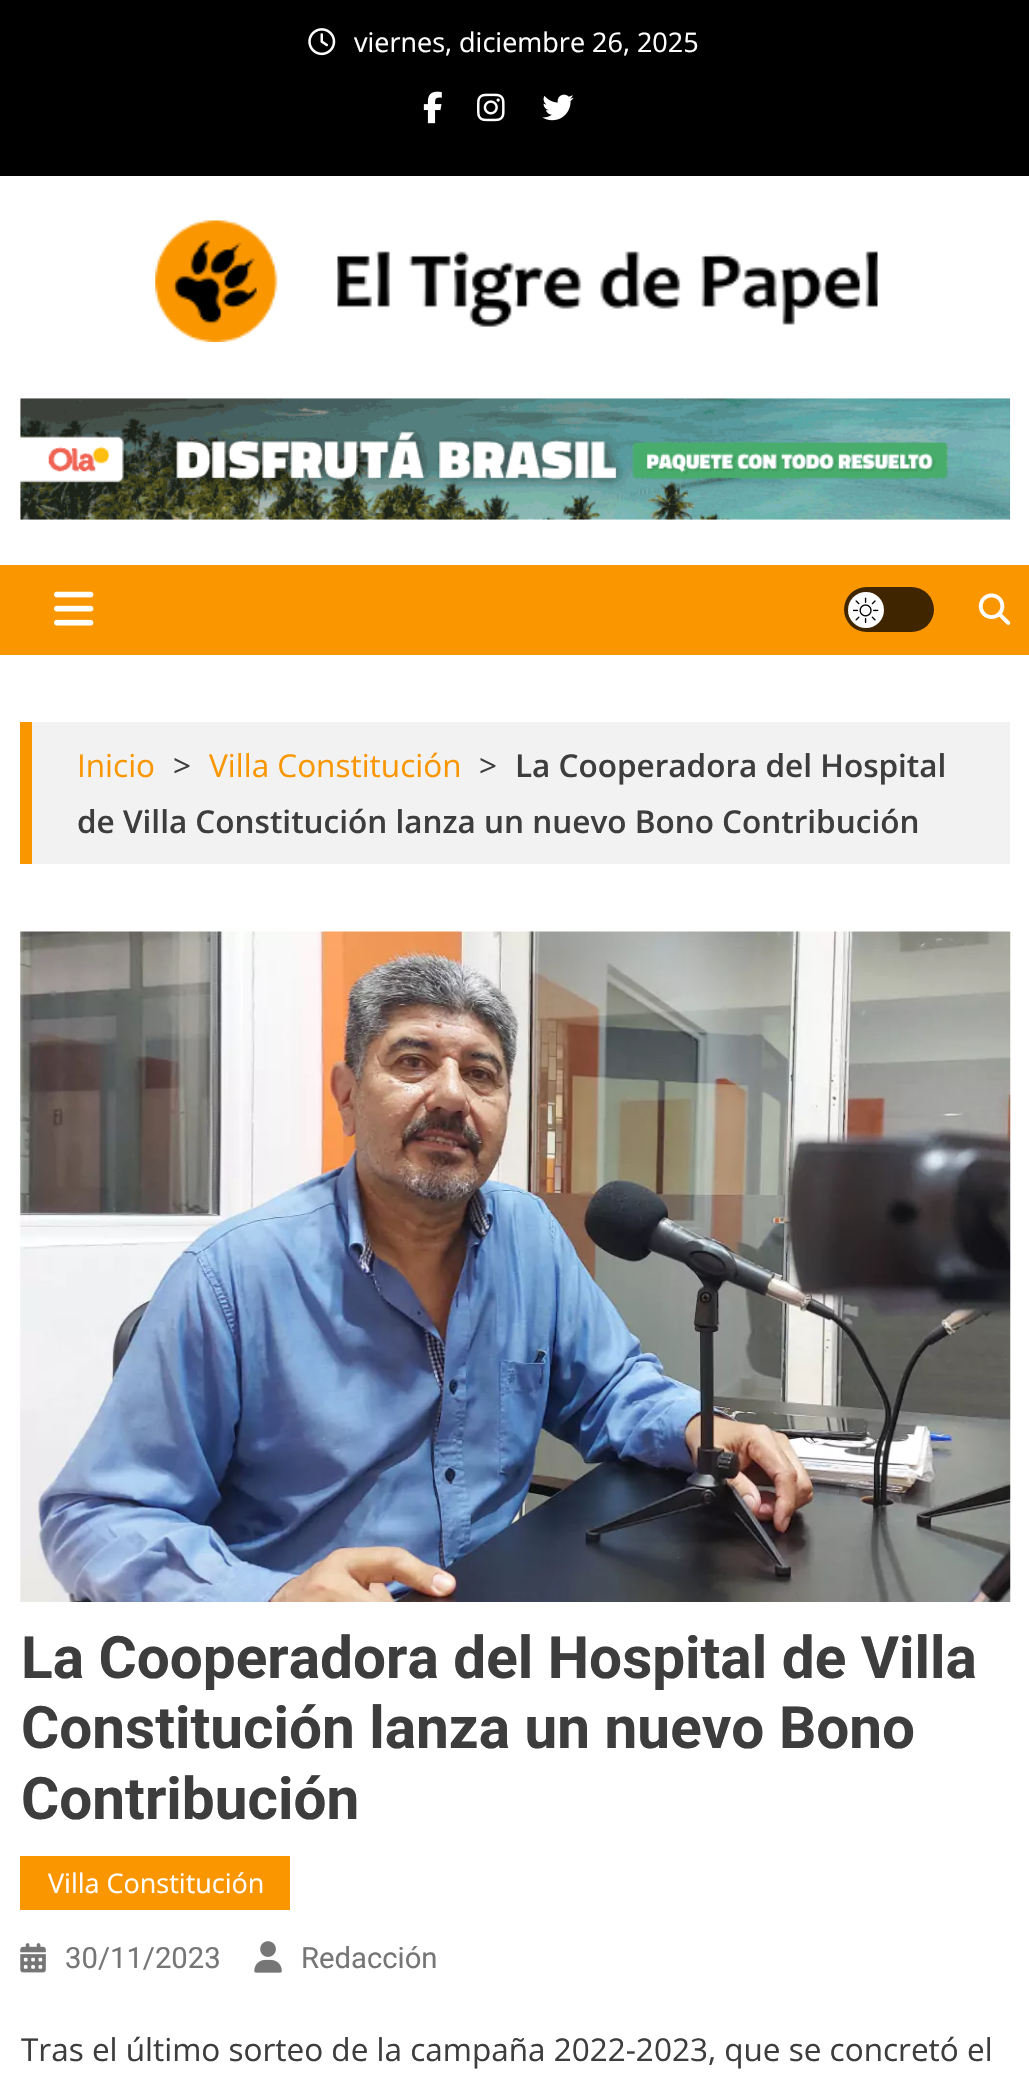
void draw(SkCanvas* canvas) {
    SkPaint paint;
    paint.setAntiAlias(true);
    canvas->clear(0xFFFFFFFF);
    paint.setColor(0xFF000000);
    canvas->drawRect(SkRect::MakeXYWH(0, 0, 1029, 176), paint);
    canvas->drawImageRect(SkImages::DeferredFromEncodedData(SkData::MakeFromFileName("img1.png")), SkRect::MakeXYWH(308, 28, 28, 28), SkSamplingOptions());
    SkFont font1(fontMgr->matchFamilyStyle("Open Sans", SkFontStyle::Normal()), 27);
    font1.setSubpixel(true);
    paint.setColor(0xFFFFFFFF);
    canvas->drawString("viernes, diciembre 26, 2025", 354, 52, font1, paint);
    canvas->drawImageRect(SkImages::DeferredFromEncodedData(SkData::MakeFromFileName("img2.png")), SkRect::MakeXYWH(423, 91, 19, 33), SkSamplingOptions());
    canvas->drawImageRect(SkImages::DeferredFromEncodedData(SkData::MakeFromFileName("img3.png")), SkRect::MakeXYWH(477, 93, 28, 29), SkSamplingOptions());
    canvas->drawImageRect(SkImages::DeferredFromEncodedData(SkData::MakeFromFileName("img4.png")), SkRect::MakeXYWH(542, 94, 32, 27), SkSamplingOptions());
    canvas->drawImageRect(SkImages::DeferredFromEncodedData(SkData::MakeFromFileName("img5.png")), SkRect::MakeXYWH(155, 220, 723, 122), SkSamplingOptions());
    canvas->drawImageRect(SkImages::DeferredFromEncodedData(SkData::MakeFromFileName("img6.png")), SkRect::MakeXYWH(20, 398, 991, 122), SkSamplingOptions());
    paint.setColor(0xFFFA9600);
    canvas->drawRect(SkRect::MakeXYWH(0, 565, 1029, 90), paint);
    canvas->drawImageRect(SkImages::DeferredFromEncodedData(SkData::MakeFromFileName("img7.png")), SkRect::MakeXYWH(54, 591, 40, 35), SkSamplingOptions());
    paint.setColor(0xFF3F2600);
    canvas->drawRoundRect(SkRect::MakeXYWH(844, 587, 90, 45), 22.5f, 22.5f, paint);
    paint.setColor(0xFFFFFFFF);
    canvas->drawCircle(866, 610, 18, paint);
    canvas->drawImageRect(SkImages::DeferredFromEncodedData(SkData::MakeFromFileName("img8.png")), SkRect::MakeXYWH(853, 597, 26, 26), SkSamplingOptions());
    canvas->drawImageRect(SkImages::DeferredFromEncodedData(SkData::MakeFromFileName("img9.png")), SkRect::MakeXYWH(978, 593, 33, 32), SkSamplingOptions());
    paint.setColor(0xFFF2F2F2);
    canvas->drawRect(SkRect::MakeXYWH(32, 722, 978, 142), paint);
    paint.setColor(0xFFFA9600);
    canvas->drawRect(SkRect::MakeXYWH(20, 722, 12, 142), paint);
    SkFont font2(fontMgr->matchFamilyStyle("Open Sans", SkFontStyle::Normal()), 31.5f);
    font2.setSubpixel(true);
    canvas->drawString("Inicio", 77, 777, font2, paint);
    paint.setColor(0xFF3D3D3D);
    canvas->drawString(">", 173, 777, font2, paint);
    paint.setColor(0xFFFA9600);
    canvas->drawString("Villa Constitución", 209, 777, font2, paint);
    paint.setColor(0xFF3D3D3D);
    canvas->drawString(">", 479, 777, font2, paint);
    SkFont font3(fontMgr->matchFamilyStyle("Open Sans", SkFontStyle(600, SkFontStyle::kNormal_Width, SkFontStyle::kUpright_Slant)), 31.5f);
    font3.setSubpixel(true);
    canvas->drawString("La Cooperadora del Hospital", 515, 777, font3, paint);
    canvas->drawString("de Villa Constitución lanza un nuevo Bono Contribución", 77, 833, font3, paint);
    canvas->drawImageRect(SkImages::DeferredFromEncodedData(SkData::MakeFromFileName("img10.png")), SkRect::MakeXYWH(20, 931, 991, 671), SkSamplingOptions());
    SkFont font4(fontMgr->matchFamilyStyle("Roboto", SkFontStyle::Bold()), 58.5f);
    font4.setSubpixel(true);
    canvas->drawString("La Cooperadora del Hospital de Villa", 21, 1678, font4, paint);
    canvas->drawString("Constitución lanza un nuevo Bono", 21, 1748, font4, paint);
    canvas->drawString("Contribución", 21, 1819, font4, paint);
    paint.setColor(0xFFFA9600);
    canvas->drawRect(SkRect::MakeXYWH(20, 1856, 270, 54), paint);
    paint.setColor(0xFFFFFFFF);
    canvas->drawString("Villa Constitución", 48, 1893, font1, paint);
    canvas->drawImageRect(SkImages::DeferredFromEncodedData(SkData::MakeFromFileName("img11.png")), SkRect::MakeXYWH(20, 1943, 26, 30), SkSamplingOptions());
    SkFont font5(fontMgr->matchFamilyStyle("Roboto", SkFontStyle::Normal()), 29.25f);
    font5.setSubpixel(true);
    paint.setColor(0xFF767676);
    canvas->drawString("30/11/2023", 65, 1968, font5, paint);
    canvas->drawImageRect(SkImages::DeferredFromEncodedData(SkData::MakeFromFileName("img12.png")), SkRect::MakeXYWH(254, 1941, 28, 32), SkSamplingOptions());
    canvas->drawString("Redacción", 301, 1968, font5, paint);
    paint.setColor(0xFF3D3D3D);
    canvas->drawString("Tras el último sorteo de la campaña 2022-2023, que se concretó el", 21, 2061, font2, paint);
}
